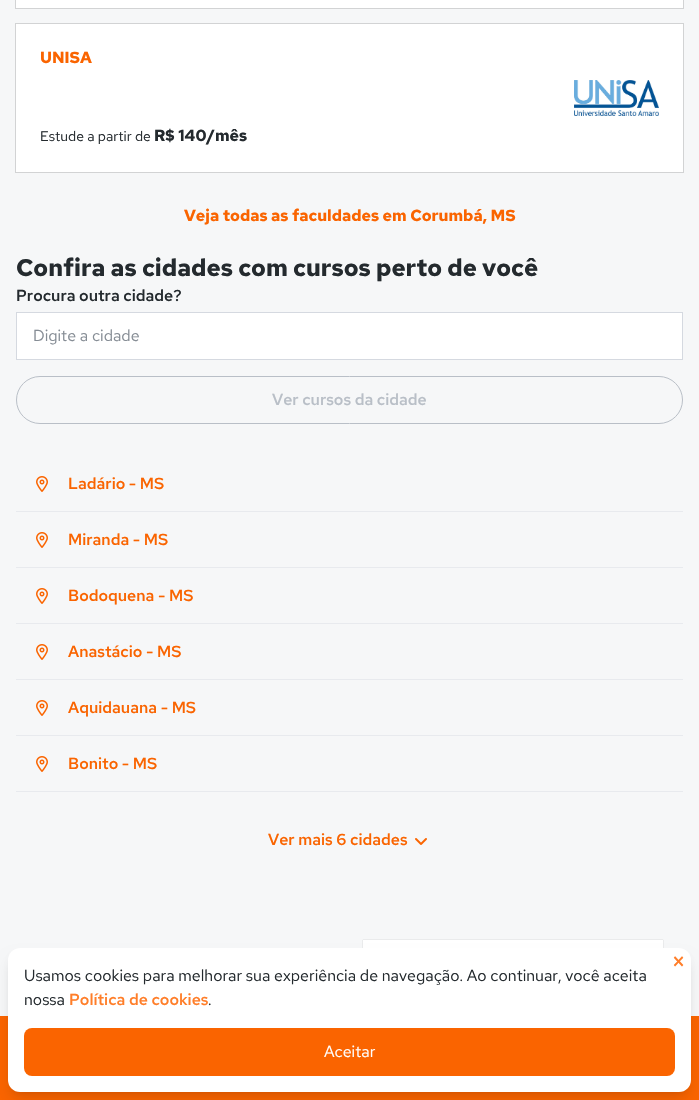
void draw(SkCanvas* canvas) {
    SkPaint paint;
    paint.setAntiAlias(true);
    canvas->clear(0xFFF6F7F8);
    paint.setStyle(SkPaint::kStroke_Style);
    paint.setStrokeWidth(1);
    paint.setColor(0xFFD2D3D4);
    canvas->drawRect(SkRect::MakeXYWH(15.5f, -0.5f, 668, 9), paint);
    paint.setStyle(SkPaint::kFill_Style);
    paint.setColor(0xFFFFFFFF);
    canvas->drawRect(SkRect::MakeXYWH(16, 0, 667, 8), paint);
    paint.setStyle(SkPaint::kStroke_Style);
    paint.setColor(0xFFD2D3D4);
    canvas->drawRect(SkRect::MakeXYWH(15.5f, 23.5f, 668, 149), paint);
    paint.setStyle(SkPaint::kFill_Style);
    paint.setColor(0xFFFFFFFF);
    canvas->drawRect(SkRect::MakeXYWH(16, 24, 667, 148), paint);
    SkFont font1(fontMgr->matchFamilyStyle("Red Hat Text", SkFontStyle::Bold()), 16);
    font1.setSubpixel(true);
    paint.setColor(0xFFFA6400);
    canvas->drawString("UNISA", 40, 63, font1, paint);
    canvas->drawImageRect(SkImages::DeferredFromEncodedData(SkData::MakeFromFileName("img1.png")), SkRect::MakeXYWH(574, 80, 85, 36), SkSamplingOptions());
    SkFont font2(fontMgr->matchFamilyStyle("Red Hat Text", SkFontStyle::Normal()), 14);
    font2.setSubpixel(true);
    paint.setColor(0xFF242A2E);
    canvas->drawString("Estude a partir de", 40, 141, font2, paint);
    canvas->drawString("R$ 140/mês", 154, 141, font1, paint);
    paint.setColor(0xFFFA6400);
    canvas->drawString("Veja todas as faculdades em Corumbá, MS", 184, 221, font1, paint);
    SkFont font3(fontMgr->matchFamilyStyle("Red Hat Text", SkFontStyle::Bold()), 24);
    font3.setSubpixel(true);
    paint.setColor(0xFF242A2E);
    canvas->drawString("Confira as cidades com cursos perto de você", 16, 276, font3, paint);
    SkFont font4(fontMgr->matchFamilyStyle("Red Hat Text", SkFontStyle(500, SkFontStyle::kNormal_Width, SkFontStyle::kUpright_Slant)), 16);
    font4.setSubpixel(true);
    canvas->drawString("Procura outra cidade?", 16, 301, font4, paint);
    paint.setColor(0xFFFFFFFF);
    canvas->drawRect(SkRect::MakeXYWH(16.5f, 312.5f, 666, 47), paint);
    paint.setStyle(SkPaint::kStroke_Style);
    paint.setColor(0xFFD5D9E0);
    canvas->drawRect(SkRect::MakeXYWH(16.5f, 312.5f, 666, 47), paint);
    SkFont font5(fontMgr->matchFamilyStyle("Red Hat Text", SkFontStyle::Normal()), 16);
    font5.setSubpixel(true);
    paint.setStyle(SkPaint::kFill_Style);
    paint.setColor(0xFF868D95);
    canvas->drawString("Digite a cidade", 33, 341, font5, paint);
    paint.setStyle(SkPaint::kStroke_Style);
    paint.setColor(0xFFB9BFC7);
    canvas->drawRoundRect(SkRect::MakeXYWH(16.5f, 376.5f, 666, 47), 23.5f, 23.5f, paint);
    paint.setStyle(SkPaint::kFill_Style);
    canvas->drawString("Ver cursos da cidade", 272, 405, font4, paint);
    canvas->drawImageRect(SkImages::DeferredFromEncodedData(SkData::MakeFromFileName("img2.png")), SkRect::MakeXYWH(36, 476, 12, 16), SkSamplingOptions());
    paint.setColor(0xFFFA6400);
    canvas->drawString("Ladário - MS", 68, 489, font4, paint);
    paint.setColor(0xFFE8EAEE);
    canvas->drawRect(SkRect::MakeXYWH(16, 511, 667, 1), paint);
    canvas->drawImageRect(SkImages::DeferredFromEncodedData(SkData::MakeFromFileName("img2.png")), SkRect::MakeXYWH(36, 532, 12, 16), SkSamplingOptions());
    paint.setColor(0xFFFA6400);
    canvas->drawString("Miranda - MS", 68, 545, font4, paint);
    paint.setColor(0xFFE8EAEE);
    canvas->drawRect(SkRect::MakeXYWH(16, 567, 667, 1), paint);
    canvas->drawImageRect(SkImages::DeferredFromEncodedData(SkData::MakeFromFileName("img2.png")), SkRect::MakeXYWH(36, 588, 12, 16), SkSamplingOptions());
    paint.setColor(0xFFFA6400);
    canvas->drawString("Bodoquena - MS", 68, 601, font4, paint);
    paint.setColor(0xFFE8EAEE);
    canvas->drawRect(SkRect::MakeXYWH(16, 623, 667, 1), paint);
    canvas->drawImageRect(SkImages::DeferredFromEncodedData(SkData::MakeFromFileName("img2.png")), SkRect::MakeXYWH(36, 644, 12, 16), SkSamplingOptions());
    paint.setColor(0xFFFA6400);
    canvas->drawString("Anastácio - MS", 68, 657, font4, paint);
    paint.setColor(0xFFE8EAEE);
    canvas->drawRect(SkRect::MakeXYWH(16, 679, 667, 1), paint);
    canvas->drawImageRect(SkImages::DeferredFromEncodedData(SkData::MakeFromFileName("img2.png")), SkRect::MakeXYWH(36, 700, 12, 16), SkSamplingOptions());
    paint.setColor(0xFFFA6400);
    canvas->drawString("Aquidauana - MS", 68, 713, font4, paint);
    paint.setColor(0xFFE8EAEE);
    canvas->drawRect(SkRect::MakeXYWH(16, 735, 667, 1), paint);
    canvas->drawImageRect(SkImages::DeferredFromEncodedData(SkData::MakeFromFileName("img2.png")), SkRect::MakeXYWH(36, 756, 12, 16), SkSamplingOptions());
    paint.setColor(0xFFFA6400);
    canvas->drawString("Bonito - MS", 68, 769, font4, paint);
    paint.setColor(0xFFE8EAEE);
    canvas->drawRect(SkRect::MakeXYWH(16, 791, 667, 1), paint);
    paint.setColor(0xFFFA6400);
    canvas->drawString("Ver mais 6 cidades", 268, 845, font4, paint);
    canvas->drawImageRect(SkImages::DeferredFromEncodedData(SkData::MakeFromFileName("img3.png")), SkRect::MakeXYWH(415, 838, 12, 7), SkSamplingOptions());
    paint.setColor(0x5213171A);
    paint.setMaskFilter(SkMaskFilter::MakeBlur(kNormal_SkBlurStyle, 0.5f));
    canvas->drawRect(SkRect::MakeXYWH(363, 940, 300, 72), paint);
    paint.setMaskFilter(nullptr);
    paint.setColor(0xFFFFFFFF);
    canvas->drawRect(SkRect::MakeXYWH(363, 940, 300, 8), paint);
    paint.setColor(0xFFFA6400);
    canvas->drawRect(SkRect::MakeXYWH(0, 1016, 699, 84), paint);
    paint.setColor(0x1A000000);
    paint.setMaskFilter(SkMaskFilter::MakeBlur(kNormal_SkBlurStyle, 3));
    canvas->drawRoundRect(SkRect::MakeXYWH(12, 956, 675, 136), 8, 8, paint);
    paint.setMaskFilter(nullptr);
    paint.setMaskFilter(SkMaskFilter::MakeBlur(kNormal_SkBlurStyle, 7.5f));
    canvas->drawRoundRect(SkRect::MakeXYWH(11, 961, 677, 138), 9, 9, paint);
    paint.setMaskFilter(nullptr);
    paint.setColor(0xFFFFFFFF);
    canvas->drawRoundRect(SkRect::MakeXYWH(8, 948, 683, 144), 12, 12, paint);
    SkFont font6(fontMgr->matchFamilyStyle("Red Hat Text", SkFontStyle(500, SkFontStyle::kNormal_Width, SkFontStyle::kUpright_Slant)), 24);
    font6.setSubpixel(true);
    paint.setColor(0xFFFF7E29);
    canvas->drawString("×", 672, 970, font6, paint);
    paint.setColor(0xFF242A2E);
    canvas->drawString("Usamos cookies para melhorar sua experiência de navegação. Ao continuar, você aceita", 24, 981, font5, paint);
    canvas->drawString("nossa", 24, 1005, font5, paint);
    paint.setColor(0xFFFF7E29);
    canvas->drawString("Política de cookies", 69, 1005, font4, paint);
    paint.setColor(0xFF242A2E);
    canvas->drawString(".", 208, 1005, font5, paint);
    paint.setColor(0xFFFA6400);
    canvas->drawRoundRect(SkRect::MakeXYWH(24, 1028, 651, 48), 8, 8, paint);
    paint.setColor(0xFFFFFFFF);
    canvas->drawString("Aceitar", 324, 1057, font5, paint);
}
